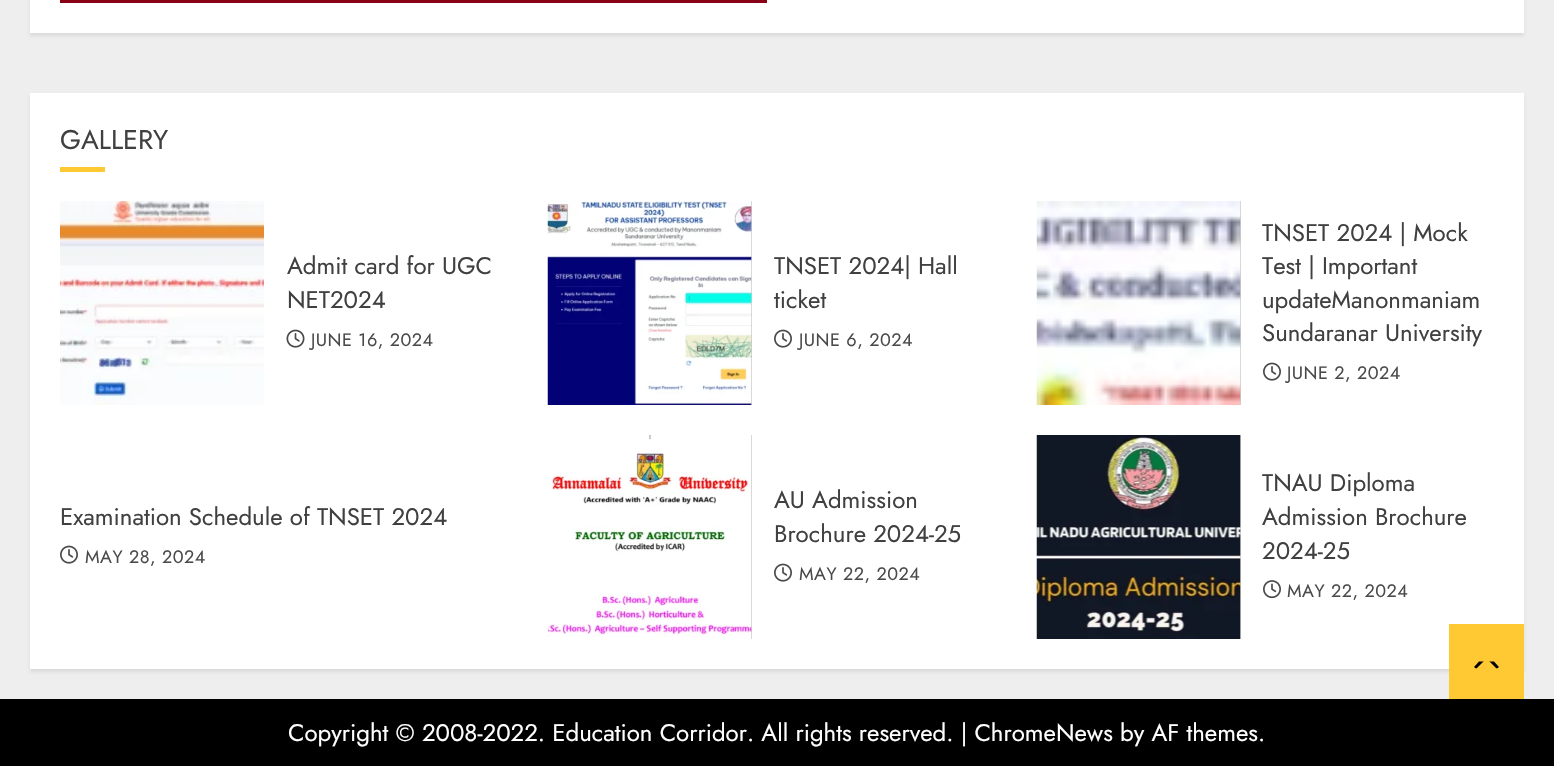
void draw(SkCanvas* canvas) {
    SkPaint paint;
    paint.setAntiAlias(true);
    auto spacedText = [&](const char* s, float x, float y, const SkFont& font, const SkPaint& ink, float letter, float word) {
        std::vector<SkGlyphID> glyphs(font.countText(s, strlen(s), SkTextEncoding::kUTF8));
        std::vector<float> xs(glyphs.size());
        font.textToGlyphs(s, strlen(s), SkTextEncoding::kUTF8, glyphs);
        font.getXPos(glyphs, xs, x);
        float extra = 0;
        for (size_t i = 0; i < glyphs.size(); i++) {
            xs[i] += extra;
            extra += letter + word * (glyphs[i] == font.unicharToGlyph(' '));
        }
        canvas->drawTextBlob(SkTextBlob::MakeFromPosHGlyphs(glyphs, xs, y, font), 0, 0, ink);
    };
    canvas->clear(0xFFEEEEEE);
    paint.setColor(0x14000000);
    paint.setMaskFilter(SkMaskFilter::MakeBlur(kNormal_SkBlurStyle, 1.5f));
    canvas->drawRect(SkRect::MakeXYWH(30, -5, 1494, 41), paint);
    paint.setMaskFilter(nullptr);
    paint.setColor(0xFFFFFFFF);
    canvas->drawRect(SkRect::MakeXYWH(30, 0, 1494, 33), paint);
    paint.setColor(0xFF880015);
    canvas->drawRect(SkRect::MakeXYWH(60, 0, 707, 3), paint);
    paint.setColor(0x14000000);
    paint.setMaskFilter(SkMaskFilter::MakeBlur(kNormal_SkBlurStyle, 1.5f));
    canvas->drawRect(SkRect::MakeXYWH(30, 96, 1494, 576), paint);
    paint.setMaskFilter(nullptr);
    paint.setColor(0xFFFFFFFF);
    canvas->drawRect(SkRect::MakeXYWH(30, 93, 1494, 576), paint);
    SkFont font1(fontMgr->matchFamilyStyle("Jost", SkFontStyle::Normal()), 27);
    font1.setSubpixel(true);
    paint.setColor(0xFF404040);
    canvas->drawString("GALLERY", 60, 149, font1, paint);
    paint.setColor(0xFFFFC934);
    canvas->drawRect(SkRect::MakeXYWH(60, 167, 45, 5), paint);
    canvas->drawImageRect(SkImages::DeferredFromEncodedData(SkData::MakeFromFileName("img1.png")), SkRect::MakeXYWH(60, 201, 204, 204), SkSamplingOptions());
    SkFont font2(fontMgr->matchFamilyStyle("Jost", SkFontStyle::Normal()), 24);
    font2.setSubpixel(true);
    paint.setColor(0xFF404040);
    canvas->drawString("Admit card for UGC", 287, 274, font2, paint);
    canvas->drawString("NET2024", 287, 308, font2, paint);
    canvas->drawImageRect(SkImages::DeferredFromEncodedData(SkData::MakeFromFileName("img2.png")), SkRect::MakeXYWH(286, 329, 19, 19), SkSamplingOptions());
    SkFont font3(fontMgr->matchFamilyStyle("Jost", SkFontStyle::Normal()), 18);
    font3.setSubpixel(true);
    paint.setColor(0xFF4A4A4A);
    spacedText("JUNE 16, 2024", 311, 346, font3, paint, 0.5f, 0);
    paint.setColor(0xFFCCCCCC);
    canvas->drawRect(SkRect::MakeXYWH(751, 201, 1, 204), paint);
    canvas->drawImageRect(SkImages::DeferredFromEncodedData(SkData::MakeFromFileName("img3.png")), SkRect::MakeXYWH(547, 201, 205, 204), SkSamplingOptions());
    paint.setColor(0xFF404040);
    canvas->drawString("TNSET 2024| Hall", 774, 274, font2, paint);
    canvas->drawString("ticket", 774, 308, font2, paint);
    canvas->drawImageRect(SkImages::DeferredFromEncodedData(SkData::MakeFromFileName("img4.png")), SkRect::MakeXYWH(774, 329, 18, 19), SkSamplingOptions());
    paint.setColor(0xFF4A4A4A);
    spacedText("JUNE 6, 2024", 799, 346, font3, paint, 0.5f, 0);
    paint.setColor(0xFFCCCCCC);
    canvas->drawRect(SkRect::MakeXYWH(1240, 201, 1, 204), paint);
    canvas->drawImageRect(SkImages::DeferredFromEncodedData(SkData::MakeFromFileName("img5.png")), SkRect::MakeXYWH(1036, 201, 205, 204), SkSamplingOptions());
    paint.setColor(0xFF404040);
    canvas->drawString("TNSET 2024 | Mock", 1262, 241, font2, paint);
    canvas->drawString("Test | Important", 1262, 274, font2, paint);
    canvas->drawString("updateManonmaniam", 1262, 308, font2, paint);
    canvas->drawString("Sundaranar University", 1262, 341, font2, paint);
    canvas->drawImageRect(SkImages::DeferredFromEncodedData(SkData::MakeFromFileName("img4.png")), SkRect::MakeXYWH(1263, 362, 18, 19), SkSamplingOptions());
    paint.setColor(0xFF4A4A4A);
    spacedText("JUNE 2, 2024", 1287, 379, font3, paint, 0.5f, 0);
    paint.setColor(0xFF404040);
    canvas->drawString("Examination Schedule of TNSET 2024", 60, 525, font2, paint);
    canvas->drawImageRect(SkImages::DeferredFromEncodedData(SkData::MakeFromFileName("img4.png")), SkRect::MakeXYWH(60, 545, 18, 19), SkSamplingOptions());
    paint.setColor(0xFF4A4A4A);
    spacedText("MAY 28, 2024", 85, 563, font3, paint, 0.5f, 0);
    paint.setColor(0xFFCCCCCC);
    canvas->drawRect(SkRect::MakeXYWH(751, 435, 1, 204), paint);
    canvas->drawImageRect(SkImages::DeferredFromEncodedData(SkData::MakeFromFileName("img6.png")), SkRect::MakeXYWH(547, 435, 205, 204), SkSamplingOptions());
    paint.setColor(0xFF404040);
    canvas->drawString("AU Admission", 774, 508, font2, paint);
    canvas->drawString("Brochure 2024-25", 774, 542, font2, paint);
    canvas->drawImageRect(SkImages::DeferredFromEncodedData(SkData::MakeFromFileName("img4.png")), SkRect::MakeXYWH(774, 563, 18, 19), SkSamplingOptions());
    paint.setColor(0xFF4A4A4A);
    spacedText("MAY 22, 2024", 799, 580, font3, paint, 0.5f, 0);
    paint.setColor(0xFFCCCCCC);
    canvas->drawRect(SkRect::MakeXYWH(1240, 435, 1, 204), paint);
    canvas->drawImageRect(SkImages::DeferredFromEncodedData(SkData::MakeFromFileName("img7.png")), SkRect::MakeXYWH(1036, 435, 205, 204), SkSamplingOptions());
    paint.setColor(0xFF404040);
    canvas->drawString("TNAU Diploma", 1262, 491, font2, paint);
    canvas->drawString("Admission Brochure", 1262, 525, font2, paint);
    canvas->drawString("2024-25", 1262, 559, font2, paint);
    canvas->drawImageRect(SkImages::DeferredFromEncodedData(SkData::MakeFromFileName("img8.png")), SkRect::MakeXYWH(1263, 580, 18, 19), SkSamplingOptions());
    paint.setColor(0xFF4A4A4A);
    spacedText("MAY 22, 2024", 1287, 597, font3, paint, 0.5f, 0);
    paint.setColor(0xFF000000);
    canvas->drawRect(SkRect::MakeXYWH(0, 699, 1554, 67), paint);
    paint.setColor(0xFFFFFFFF);
    canvas->drawString("Copyright © 2008-2022. Education Corridor. All rights reserved. | ChromeNews by AF themes.", 288, 741, font2, paint);
    paint.setColor(0xFFFFC934);
    canvas->drawRect(SkRect::MakeXYWH(1449, 624, 75, 75), paint);
    paint.setColor(0xFF000000);
    canvas->drawPath(SkPathBuilder().moveTo(1479, 669).lineTo(1494, 669).cubicTo(1496, 669, 1498, 668, 1499, 667).lineTo(1494, 661.5f).lineTo(1479, 661.5f).lineTo(1474, 667).cubicTo(1475, 668, 1477, 669, 1479, 669).close().detach(), paint);
    paint.setColor(0xFFFFC934);
    canvas->drawPath(SkPathBuilder().moveTo(1501.5f, 673.5f).lineTo(1471.5f, 673.5f).lineTo(1486.5f, 658.5f).close().detach(), paint);
}
